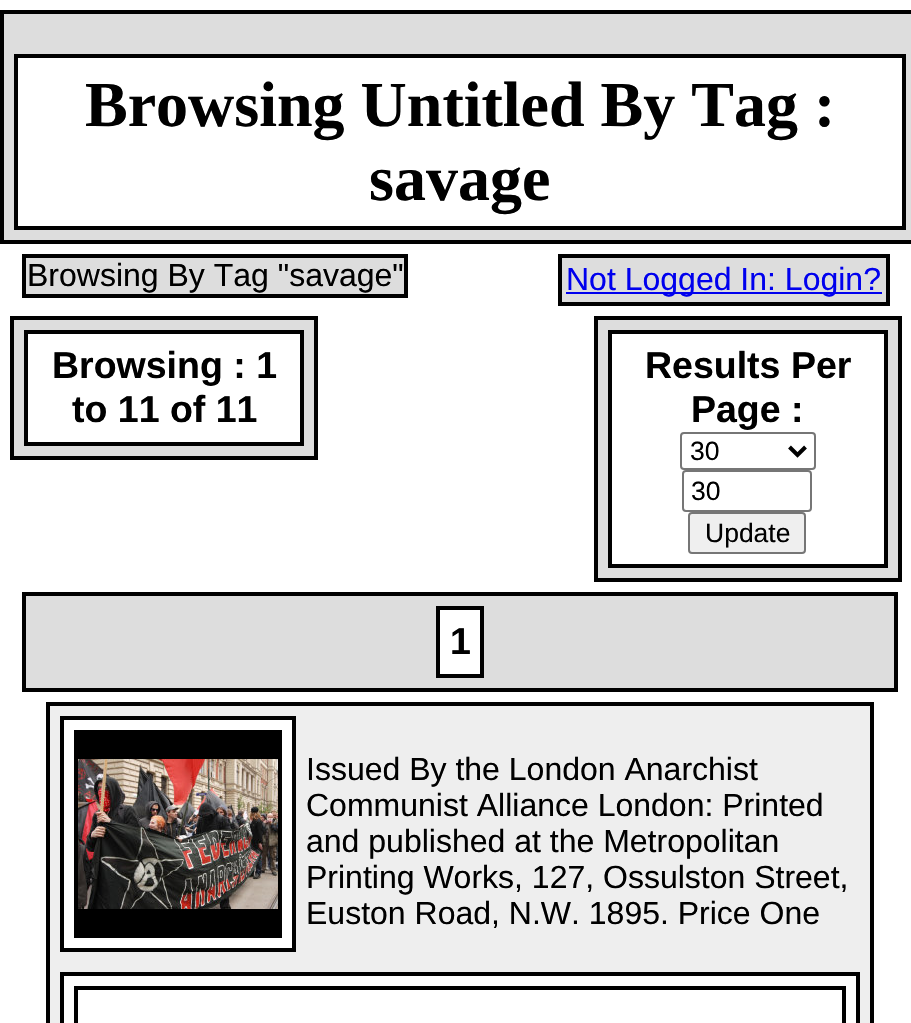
void draw(SkCanvas* canvas) {
    SkPaint paint;
    paint.setAntiAlias(true);
    canvas->clear(0xFFFFFFFF);
    paint.setColor(0xFFDDDDDD);
    canvas->drawRect(SkRect::MakeXYWH(2, 12, 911, 230), paint);
    paint.setStyle(SkPaint::kStroke_Style);
    paint.setStrokeWidth(4);
    paint.setColor(0xFF000000);
    canvas->drawRect(SkRect::MakeXYWH(2, 12, 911, 230), paint);
    paint.setStyle(SkPaint::kFill_Style);
    paint.setColor(0xFFFFFFFF);
    canvas->drawRect(SkRect::MakeXYWH(16, 56, 888, 172), paint);
    paint.setStyle(SkPaint::kStroke_Style);
    paint.setColor(0xFF000000);
    canvas->drawRect(SkRect::MakeXYWH(16, 56, 888, 172), paint);
    SkFont font1(fontMgr->matchFamilyStyle("Liberation Serif", SkFontStyle::Bold()), 64);
    font1.setSubpixel(true);
    paint.setStyle(SkPaint::kFill_Style);
    canvas->drawString("Browsing Untitled By Tag :", 85, 126, font1, paint);
    canvas->drawString("savage", 369, 200, font1, paint);
    paint.setColor(0xFFDDDDDD);
    canvas->drawRect(SkRect::MakeXYWH(24, 256, 382, 40), paint);
    paint.setStyle(SkPaint::kStroke_Style);
    paint.setColor(0xFF000000);
    canvas->drawRect(SkRect::MakeXYWH(24, 256, 382, 40), paint);
    SkFont font2(fontMgr->matchFamilyStyle("Liberation Sans", SkFontStyle::Normal()), 32);
    font2.setSubpixel(true);
    paint.setStyle(SkPaint::kFill_Style);
    canvas->drawString("Browsing By Tag \"savage\"", 27, 286, font2, paint);
    paint.setColor(0xFFDDDDDD);
    canvas->drawRect(SkRect::MakeXYWH(560, 256, 328, 48), paint);
    paint.setStyle(SkPaint::kStroke_Style);
    paint.setColor(0xFF000000);
    canvas->drawRect(SkRect::MakeXYWH(560, 256, 328, 48), paint);
    paint.setStyle(SkPaint::kFill_Style);
    paint.setColor(0xFF0000EE);
    canvas->drawRect(SkRect::MakeXYWH(566, 292, 316, 2), paint);
    canvas->drawString("Not Logged In: Login?", 566, 290, font2, paint);
    paint.setColor(0xFFDDDDDD);
    canvas->drawRect(SkRect::MakeXYWH(12, 318, 304, 140), paint);
    paint.setStyle(SkPaint::kStroke_Style);
    paint.setColor(0xFF000000);
    canvas->drawRect(SkRect::MakeXYWH(12, 318, 304, 140), paint);
    paint.setStyle(SkPaint::kFill_Style);
    paint.setColor(0xFFFFFFFF);
    canvas->drawRect(SkRect::MakeXYWH(26, 332, 276, 112), paint);
    paint.setStyle(SkPaint::kStroke_Style);
    paint.setColor(0xFF000000);
    canvas->drawRect(SkRect::MakeXYWH(26, 332, 276, 112), paint);
    SkFont font3(fontMgr->matchFamilyStyle("Liberation Sans", SkFontStyle::Bold()), 37.5f);
    font3.setSubpixel(true);
    paint.setStyle(SkPaint::kFill_Style);
    canvas->drawString("Browsing : 1", 52, 378, font3, paint);
    canvas->drawString("to 11 of 11", 72, 422, font3, paint);
    paint.setColor(0xFFDDDDDD);
    canvas->drawRect(SkRect::MakeXYWH(596, 318, 304, 262), paint);
    paint.setStyle(SkPaint::kStroke_Style);
    paint.setColor(0xFF000000);
    canvas->drawRect(SkRect::MakeXYWH(596, 318, 304, 262), paint);
    paint.setStyle(SkPaint::kFill_Style);
    paint.setColor(0xFFFFFFFF);
    canvas->drawRect(SkRect::MakeXYWH(610, 332, 276, 234), paint);
    paint.setStyle(SkPaint::kStroke_Style);
    paint.setColor(0xFF000000);
    canvas->drawRect(SkRect::MakeXYWH(610, 332, 276, 234), paint);
    paint.setStyle(SkPaint::kFill_Style);
    canvas->drawString("Results Per", 645, 378, font3, paint);
    canvas->drawString("Page :", 691, 422, font3, paint);
    paint.setStyle(SkPaint::kStroke_Style);
    paint.setStrokeWidth(2);
    paint.setColor(0xFF767676);
    canvas->drawRoundRect(SkRect::MakeXYWH(681, 433, 134, 36), 3, 3, paint);
    paint.setStrokeWidth(4);
    paint.setColor(0xFF000000);
    canvas->drawPath(SkPathBuilder().moveTo(789.5f, 447).lineTo(797.5f, 455).lineTo(805.5f, 447).detach(), paint);
    SkFont font4(fontMgr->matchFamilyStyle("Liberation Sans", SkFontStyle::Normal()), 26.5f);
    font4.setSubpixel(true);
    paint.setStyle(SkPaint::kFill_Style);
    canvas->drawString("30", 690, 460, font4, paint);
    paint.setStyle(SkPaint::kStroke_Style);
    paint.setStrokeWidth(2);
    paint.setColor(0xFF767676);
    canvas->drawRoundRect(SkRect::MakeXYWH(683, 471, 128, 40), 3, 3, paint);
    paint.setStyle(SkPaint::kFill_Style);
    paint.setColor(0xFF000000);
    canvas->drawString("30", 691, 500, font4, paint);
    paint.setColor(0xFFEFEFEF);
    canvas->drawRoundRect(SkRect::MakeXYWH(689, 513, 116, 40), 3, 3, paint);
    paint.setStyle(SkPaint::kStroke_Style);
    paint.setColor(0xFF767676);
    canvas->drawRoundRect(SkRect::MakeXYWH(689, 513, 116, 40), 3, 3, paint);
    paint.setStyle(SkPaint::kFill_Style);
    paint.setColor(0xFF000000);
    canvas->drawString("Update", 705, 542, font4, paint);
    paint.setColor(0xFFDDDDDD);
    canvas->drawRect(SkRect::MakeXYWH(24, 594, 872, 96), paint);
    paint.setStyle(SkPaint::kStroke_Style);
    paint.setStrokeWidth(4);
    paint.setColor(0xFF000000);
    canvas->drawRect(SkRect::MakeXYWH(24, 594, 872, 96), paint);
    paint.setStyle(SkPaint::kFill_Style);
    paint.setColor(0xFFFFFFFF);
    canvas->drawRect(SkRect::MakeXYWH(438, 608, 44, 68), paint);
    paint.setStyle(SkPaint::kStroke_Style);
    paint.setColor(0xFF000000);
    canvas->drawRect(SkRect::MakeXYWH(438, 608, 44, 68), paint);
    paint.setStyle(SkPaint::kFill_Style);
    canvas->drawString("1", 450, 654, font3, paint);
    paint.setColor(0xFFEEEEEE);
    canvas->drawRect(SkRect::MakeXYWH(48, 704, 824, 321), paint);
    paint.setStyle(SkPaint::kStroke_Style);
    paint.setColor(0xFF000000);
    canvas->drawRect(SkRect::MakeXYWH(48, 704, 824, 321), paint);
    paint.setStyle(SkPaint::kFill_Style);
    paint.setColor(0xFFFFFFFF);
    canvas->drawRect(SkRect::MakeXYWH(62, 718, 232, 232), paint);
    paint.setStyle(SkPaint::kStroke_Style);
    paint.setColor(0xFF000000);
    canvas->drawRect(SkRect::MakeXYWH(62, 718, 232, 232), paint);
    canvas->drawRect(SkRect::MakeXYWH(76, 732, 204, 204), paint);
    paint.setStyle(SkPaint::kFill_Style);
    canvas->drawRect(SkRect::MakeXYWH(78, 734, 200, 200), paint);
    canvas->drawImageRect(SkImages::DeferredFromEncodedData(SkData::MakeFromFileName("img1.png")), SkRect::MakeXYWH(78, 759, 200, 150), SkSamplingOptions());
    canvas->drawString("Issued By the London Anarchist", 306, 780, font2, paint);
    canvas->drawString("Communist Alliance London: Printed", 306, 816, font2, paint);
    canvas->drawString("and published at the Metropolitan", 306, 852, font2, paint);
    canvas->drawString("Printing Works, 127, Ossulston Street,", 306, 888, font2, paint);
    canvas->drawString("Euston Road, N.W. 1895. Price One", 306, 924, font2, paint);
    paint.setColor(0xFFFFFFFF);
    canvas->drawRect(SkRect::MakeXYWH(62, 974, 796, 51), paint);
    paint.setStyle(SkPaint::kStroke_Style);
    paint.setColor(0xFF000000);
    canvas->drawRect(SkRect::MakeXYWH(62, 974, 796, 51), paint);
    canvas->drawRect(SkRect::MakeXYWH(76, 988, 768, 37), paint);
}
